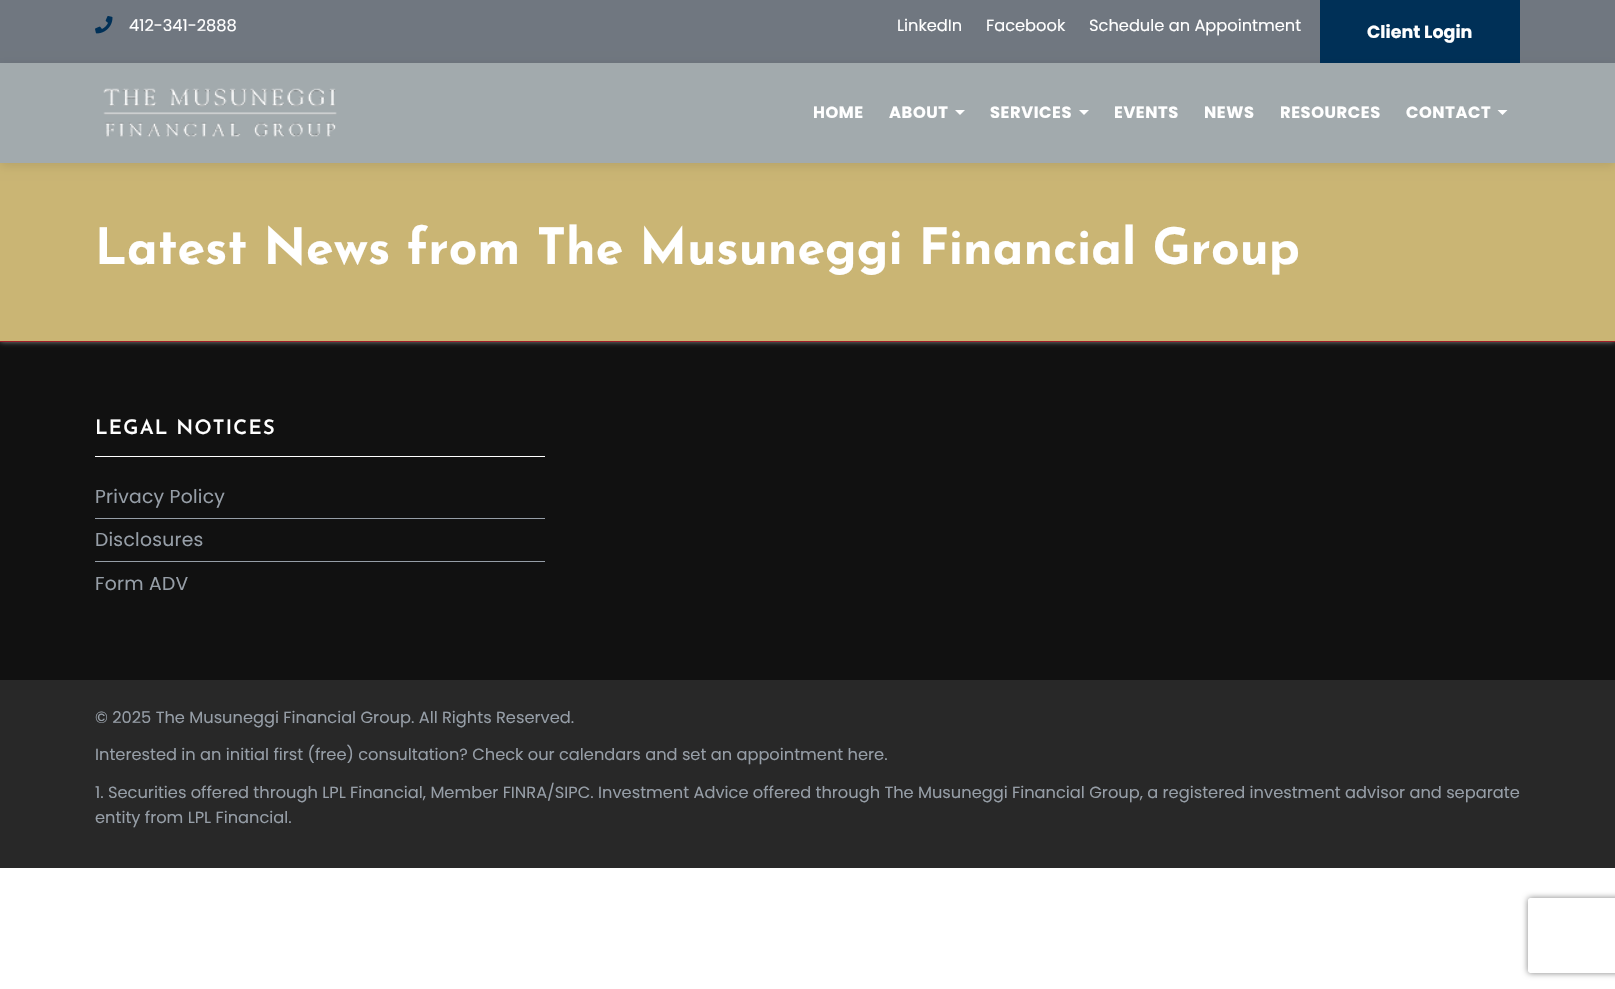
void draw(SkCanvas* canvas) {
    SkPaint paint;
    paint.setAntiAlias(true);
    auto spacedText = [&](const char* s, float x, float y, const SkFont& font, const SkPaint& ink, float letter, float word) {
        std::vector<SkGlyphID> glyphs(font.countText(s, strlen(s), SkTextEncoding::kUTF8));
        std::vector<float> xs(glyphs.size());
        font.textToGlyphs(s, strlen(s), SkTextEncoding::kUTF8, glyphs);
        font.getXPos(glyphs, xs, x);
        float extra = 0;
        for (size_t i = 0; i < glyphs.size(); i++) {
            xs[i] += extra;
            extra += letter + word * (glyphs[i] == font.unicharToGlyph(' '));
        }
        canvas->drawTextBlob(SkTextBlob::MakeFromPosHGlyphs(glyphs, xs, y, font), 0, 0, ink);
    };
    canvas->clear(0xFFFFFFFF);
    paint.setColor(0xFF707780);
    canvas->drawRect(SkRect::MakeXYWH(0, 0, 1615, 63), paint);
    canvas->drawImageRect(SkImages::DeferredFromEncodedData(SkData::MakeFromFileName("img1.png")), SkRect::MakeXYWH(95, 16, 18, 18), SkSamplingOptions());
    SkFont font1(fontMgr->matchFamilyStyle("Poppins", SkFontStyle::Normal()), 16.25f);
    font1.setSubpixel(true);
    paint.setColor(0xFFFFFFFF);
    canvas->drawString("412-341-2888", 129, 31, font1, paint);
    canvas->drawString("LinkedIn", 897, 31, font1, paint);
    canvas->drawString("Facebook", 986, 31, font1, paint);
    canvas->drawString("Schedule an Appointment", 1089, 31, font1, paint);
    paint.setColor(0xFF003057);
    canvas->drawRect(SkRect::MakeXYWH(1320, 0, 200, 63), paint);
    SkFont font2(fontMgr->matchFamilyStyle("Poppins", SkFontStyle::Bold()), 17.5f);
    font2.setSubpixel(true);
    paint.setColor(0xFFFFFFFF);
    canvas->drawString("Client Login", 1367, 38, font2, paint);
    paint.setColor(0xFF111111);
    canvas->drawRect(SkRect::MakeXYWH(0, 342, 1615, 338), paint);
    paint.setColor(0xFFAAAAAA);
    paint.setMaskFilter(SkMaskFilter::MakeBlur(kNormal_SkBlurStyle, 3));
    canvas->drawRect(SkRect::MakeXYWH(0, 163, 1615, 178), paint);
    paint.setMaskFilter(nullptr);
    paint.setColor(0xFFCAB574);
    canvas->drawRect(SkRect::MakeXYWH(0, 163, 1615, 178), paint);
    paint.setColor(0x1A000000);
    paint.setMaskFilter(SkMaskFilter::MakeBlur(kNormal_SkBlurStyle, 5));
    canvas->drawRect(SkRect::MakeXYWH(0, 66, 1615, 100), paint);
    paint.setMaskFilter(nullptr);
    paint.setColor(0xFFA2AAAD);
    canvas->drawRect(SkRect::MakeXYWH(0, 63, 1615, 100), paint);
    canvas->drawImageRect(SkImages::DeferredFromEncodedData(SkData::MakeFromFileName("img2.png")), SkRect::MakeXYWH(103, 88, 234, 49), SkSamplingOptions());
    SkFont font3(fontMgr->matchFamilyStyle("Poppins", SkFontStyle::Bold()), 16.25f);
    font3.setSubpixel(true);
    paint.setColor(0xFFFFFFFF);
    spacedText("HOME", 813, 118, font3, paint, 0.6f, 0);
    spacedText("ABOUT", 889, 118, font3, paint, 0.6f, 0);
    canvas->drawPath(SkPathBuilder().moveTo(955, 110).lineTo(965, 110).lineTo(960, 115).close().detach(), paint);
    spacedText("SERVICES", 990, 118, font3, paint, 0.6f, 0);
    canvas->drawPath(SkPathBuilder().moveTo(1079, 110).lineTo(1089, 110).lineTo(1084, 115).close().detach(), paint);
    spacedText("EVENTS", 1114, 118, font3, paint, 0.6f, 0);
    spacedText("NEWS", 1204, 118, font3, paint, 0.6f, 0);
    spacedText("RESOURCES", 1280, 118, font3, paint, 0.6f, 0);
    spacedText("CONTACT", 1406, 118, font3, paint, 0.6f, 0);
    canvas->drawPath(SkPathBuilder().moveTo(1497.5f, 110).lineTo(1507.5f, 110).lineTo(1502.5f, 115).close().detach(), paint);
    paint.setColor(0xFFA01D28);
    canvas->drawRect(SkRect::MakeXYWH(0, 341, 1615, 1), paint);
    SkFont font4(fontMgr->matchFamilyStyle("Josefin Sans", SkFontStyle::Bold()), 50);
    font4.setSubpixel(true);
    paint.setColor(0xFFFFFFFF);
    canvas->drawString("Latest News from The Musuneggi Financial Group", 95, 264, font4, paint);
    canvas->drawRect(SkRect::MakeXYWH(95, 456, 450, 1), paint);
    SkFont font5(fontMgr->matchFamilyStyle("Josefin Sans", SkFontStyle(600, SkFontStyle::kNormal_Width, SkFontStyle::kUpright_Slant)), 20);
    font5.setSubpixel(true);
    spacedText("LEGAL NOTICES", 95, 434, font5, paint, 1.25f, 0);
    paint.setColor(0xFF969EA7);
    canvas->drawRect(SkRect::MakeXYWH(95, 518, 450, 1), paint);
    SkFont font6(fontMgr->matchFamilyStyle("Poppins", SkFontStyle::Normal()), 18.75f);
    font6.setSubpixel(true);
    spacedText("Privacy Policy", 95, 503, font6, paint, 0.25f, 0);
    canvas->drawRect(SkRect::MakeXYWH(95, 561, 450, 1), paint);
    spacedText("Disclosures", 95, 546, font6, paint, 0.25f, 0);
    spacedText("Form ADV", 95, 590, font6, paint, 0.25f, 0);
    paint.setColor(0xFF282828);
    canvas->drawRect(SkRect::MakeXYWH(0, 680, 1615, 188), paint);
    paint.setColor(0xFF969EA7);
    canvas->drawString("© 2025 The Musuneggi Financial Group. All Rights Reserved.", 95, 723, font1, paint);
    canvas->drawString("Interested in an initial first (free) consultation? Check our calendars and set an appointment here.", 95, 760, font1, paint);
    canvas->drawString("1. Securities offered through LPL Financial, Member FINRA/SIPC. Investment Advice offered through The Musuneggi Financial Group, a registered investment advisor and separate", 95, 798, font1, paint);
    canvas->drawString("entity from LPL Financial.", 95, 823, font1, paint);
    canvas->save();
    canvas->clipPath(SkPathBuilder(SkPathFillType::kEvenOdd).moveTo(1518, 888).lineTo(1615, 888).lineTo(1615, 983).lineTo(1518, 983).close().moveTo(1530.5f, 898).lineTo(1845.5f, 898).cubicTo(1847, 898, 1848, 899, 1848, 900.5f).lineTo(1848, 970.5f).cubicTo(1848, 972, 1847, 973, 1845.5f, 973).lineTo(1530.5f, 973).cubicTo(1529, 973, 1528, 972, 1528, 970.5f).lineTo(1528, 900.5f).cubicTo(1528, 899, 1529, 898, 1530.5f, 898).close().detach(), true);
    paint.setColor(0xFF808080);
    paint.setMaskFilter(SkMaskFilter::MakeBlur(kNormal_SkBlurStyle, 3));
    canvas->drawRoundRect(SkRect::MakeXYWH(1528, 898, 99, 75), 2.5f, 2.5f, paint);
    paint.setMaskFilter(nullptr);
    canvas->restore();
}
